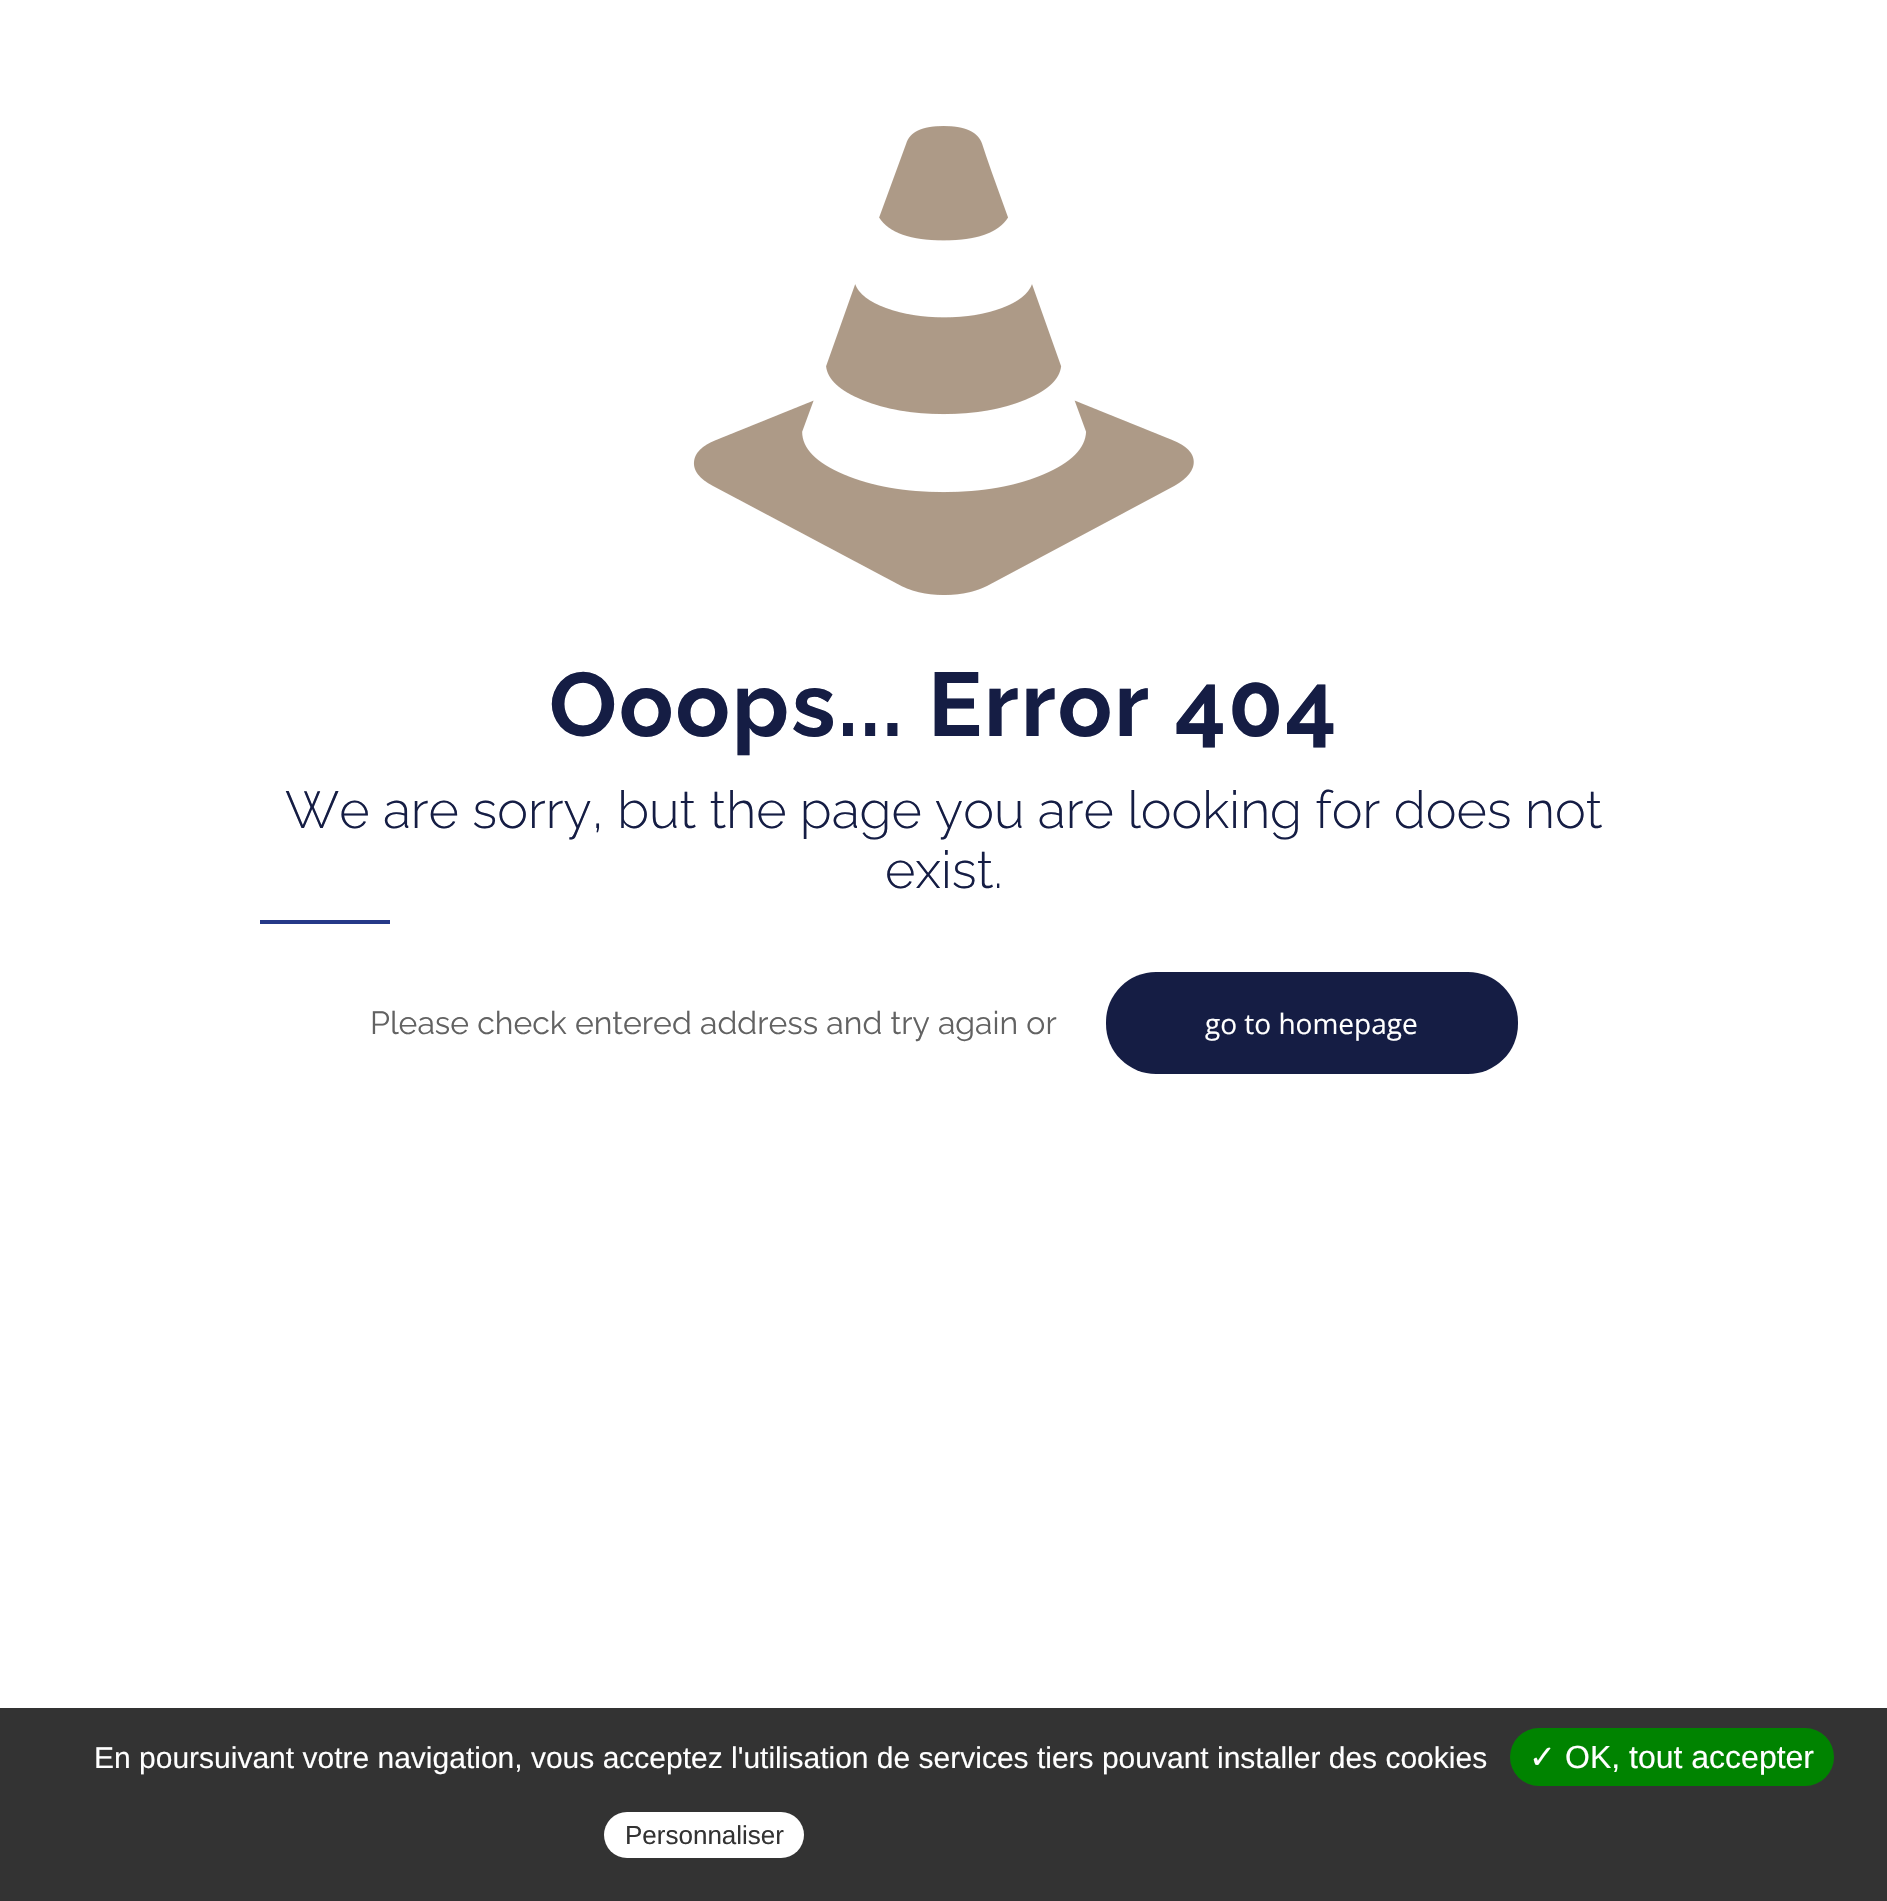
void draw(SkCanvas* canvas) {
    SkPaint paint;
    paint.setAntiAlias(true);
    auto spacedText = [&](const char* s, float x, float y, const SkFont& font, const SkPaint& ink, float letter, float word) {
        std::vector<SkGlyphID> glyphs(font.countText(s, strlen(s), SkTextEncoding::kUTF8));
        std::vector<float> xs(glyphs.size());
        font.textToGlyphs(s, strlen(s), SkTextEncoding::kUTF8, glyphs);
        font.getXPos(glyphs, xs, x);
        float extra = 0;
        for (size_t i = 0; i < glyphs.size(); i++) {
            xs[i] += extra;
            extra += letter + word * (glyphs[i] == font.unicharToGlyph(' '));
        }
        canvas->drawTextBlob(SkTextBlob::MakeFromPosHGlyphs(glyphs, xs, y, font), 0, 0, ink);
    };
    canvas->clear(0xFFFFFFFF);
    canvas->drawImageRect(SkImages::DeferredFromEncodedData(SkData::MakeFromFileName("img1.png")), SkRect::MakeXYWH(693, 126, 501, 469), SkSamplingOptions());
    SkFont font1(fontMgr->matchFamilyStyle("Raleway", SkFontStyle::Bold()), 90);
    font1.setSubpixel(true);
    paint.setColor(0xFF151D44);
    spacedText("Ooops... Error 404", 549, 736, font1, paint, 2, 0);
    SkFont font2(fontMgr->matchFamilyStyle("Raleway", SkFontStyle(300, SkFontStyle::kNormal_Width, SkFontStyle::kUpright_Slant)), 52);
    font2.setSubpixel(true);
    canvas->drawString("We are sorry, but the page you are looking for does not", 285, 828, font2, paint);
    canvas->drawString("exist.", 885, 888, font2, paint);
    paint.setColor(0xFF253988);
    canvas->drawRect(SkRect::MakeXYWH(260, 920, 130, 4), paint);
    SkFont font3(fontMgr->matchFamilyStyle("Raleway", SkFontStyle::Normal()), 32);
    font3.setSubpixel(true);
    paint.setColor(0xFF626262);
    canvas->drawString("Please check entered address and try again or", 370, 1034, font3, paint);
    paint.setColor(0xFF151D44);
    canvas->drawRoundRect(SkRect::MakeXYWH(1106, 972, 412, 102), 50, 50, paint);
    SkFont font4(fontMgr->matchFamilyStyle("Open Sans", SkFontStyle::Normal()), 28);
    font4.setSubpixel(true);
    paint.setColor(0xFFFFFFFF);
    canvas->drawString("go to homepage", 1205, 1034, font4, paint);
    paint.setColor(0xFF333333);
    canvas->drawRect(SkRect::MakeXYWH(0, 1708, 1887, 193), paint);
    SkFont font5(fontMgr->matchFamilyStyle("Liberation Sans", SkFontStyle::Normal()), 30);
    font5.setSubpixel(true);
    paint.setColor(0xFFFFFFFF);
    canvas->drawString("En poursuivant votre navigation, vous acceptez l'utilisation de services tiers pouvant installer des cookies", 94, 1768, font5, paint);
    paint.setColor(0xFF008300);
    canvas->drawRoundRect(SkRect::MakeXYWH(1510, 1728, 324, 58), 29, 29, paint);
    SkFont font6(fontMgr->matchFamilyStyle("DejaVu Sans", SkFontStyle::Normal()), 32);
    font6.setSubpixel(true);
    paint.setColor(0xFFFFFFFF);
    canvas->drawString("✓", 1529, 1768, font6, paint);
    SkFont font7(fontMgr->matchFamilyStyle("Liberation Sans", SkFontStyle::Normal()), 32);
    font7.setSubpixel(true);
    canvas->drawString("OK, tout accepter", 1565, 1768, font7, paint);
    canvas->drawRoundRect(SkRect::MakeXYWH(604, 1812, 200, 46), 23, 23, paint);
    SkFont font8(fontMgr->matchFamilyStyle("Liberation Sans", SkFontStyle::Normal()), 26);
    font8.setSubpixel(true);
    paint.setColor(0xFF333333);
    canvas->drawString("Personnaliser", 625, 1844, font8, paint);
}
